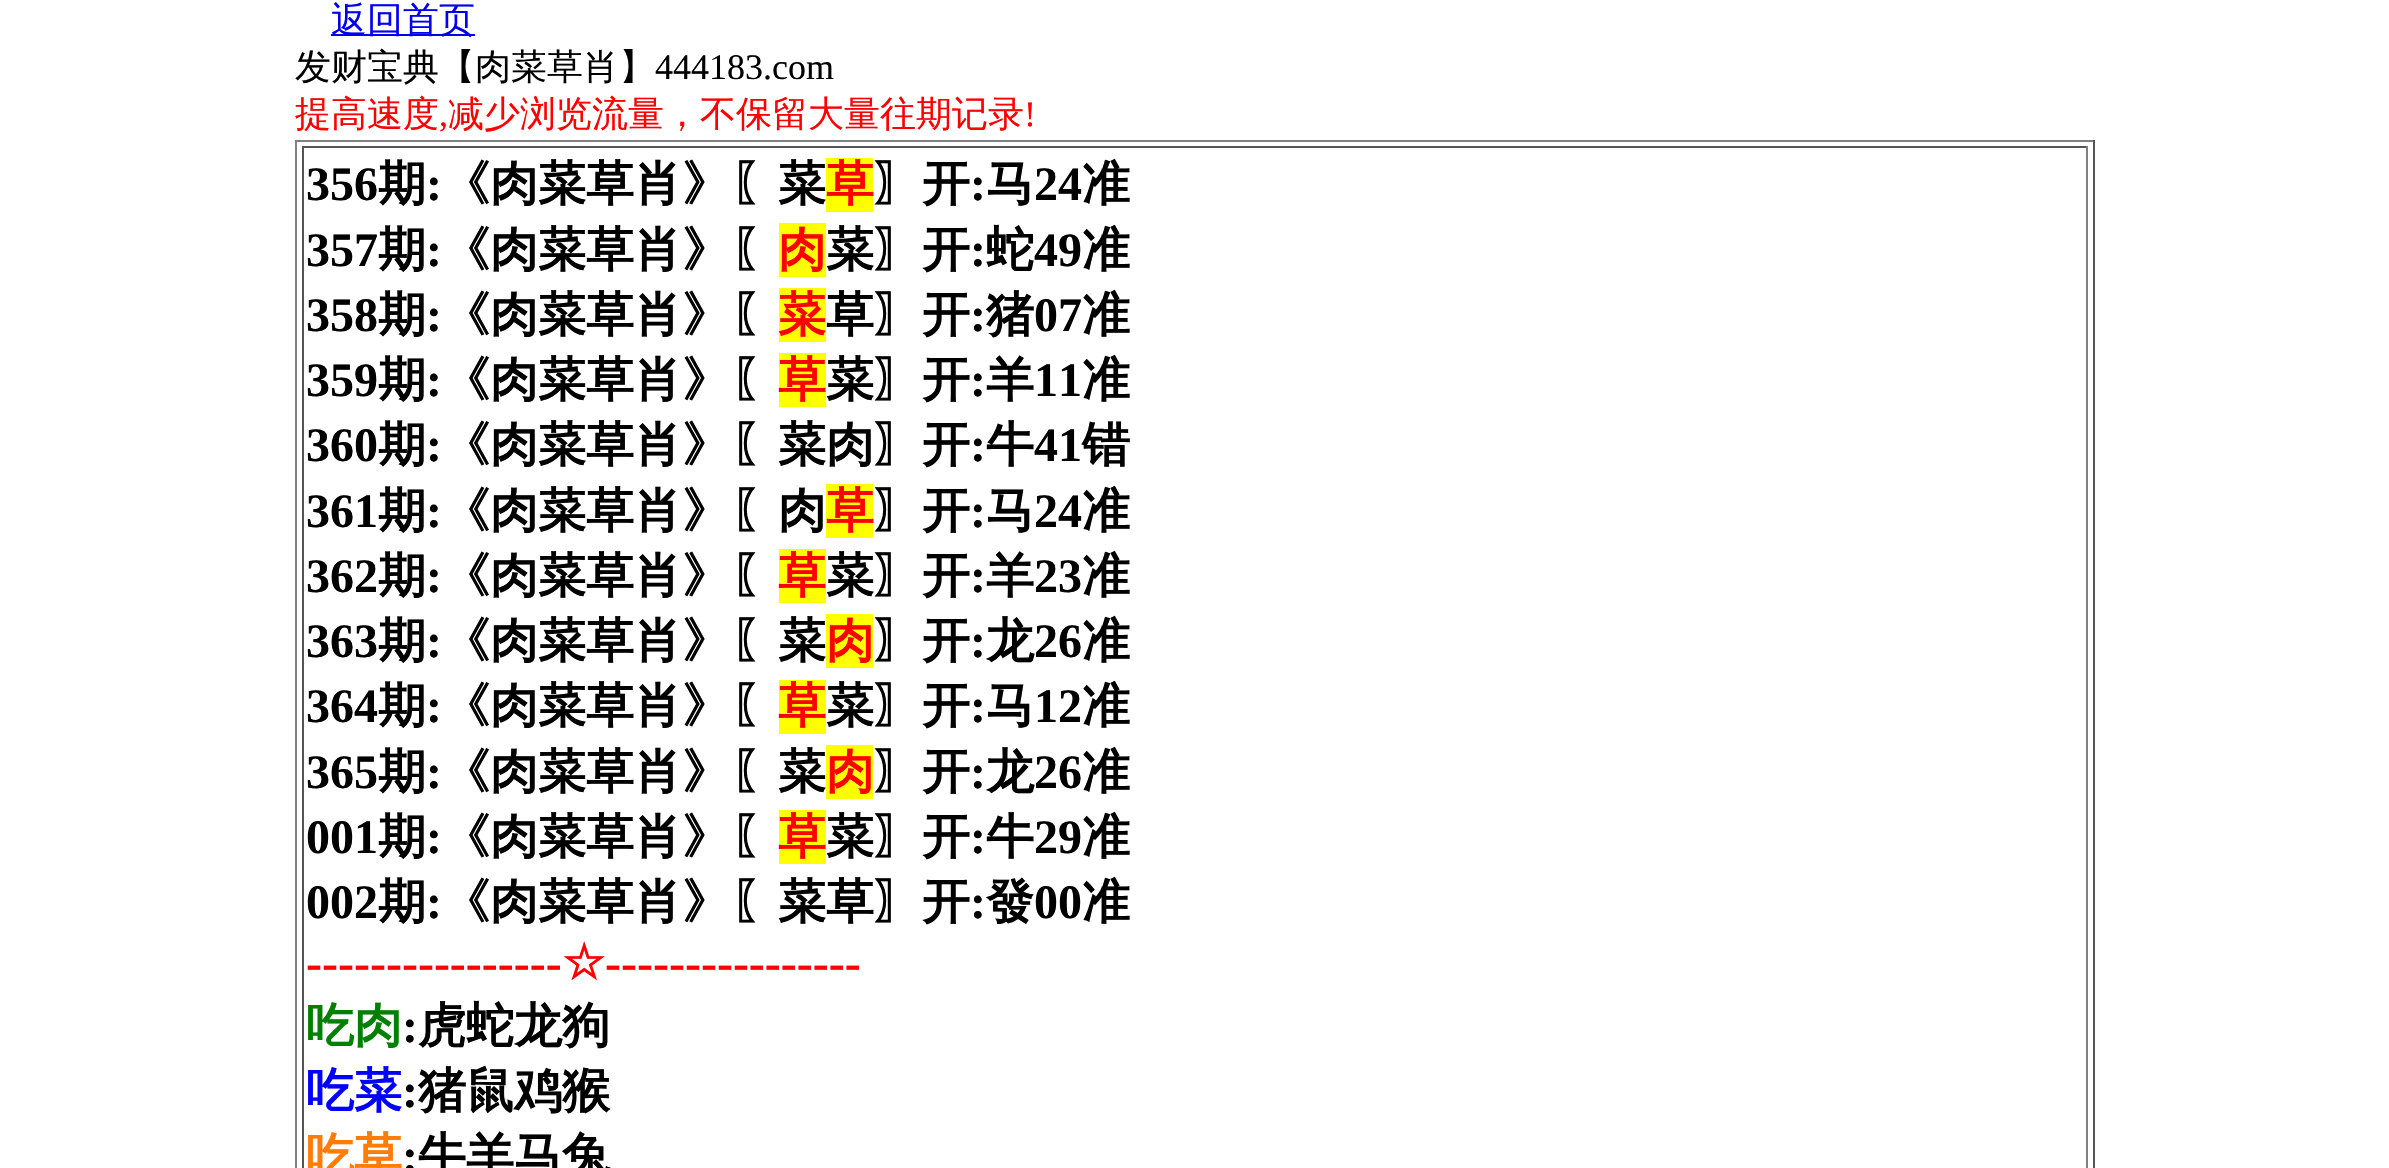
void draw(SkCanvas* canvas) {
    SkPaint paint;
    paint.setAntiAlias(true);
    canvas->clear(0xFFFFFFFF);
    paint.setColor(0xFF0000EE);
    canvas->drawRect(SkRect::MakeXYWH(331, 34, 144, 2), paint);
    SkFont font1(fontMgr->matchFamilyStyle("WenQuanYi Zen Hei", SkFontStyle(500, SkFontStyle::kNormal_Width, SkFontStyle::kUpright_Slant)), 36);
    font1.setSubpixel(true);
    canvas->drawString("返回首页", 331, 32, font1, paint);
    paint.setColor(0xFF000000);
    canvas->drawString("发财宝典【肉菜草肖】", 295, 79, font1, paint);
    SkFont font2(fontMgr->matchFamilyStyle("Liberation Serif", SkFontStyle::Normal()), 36);
    font2.setSubpixel(true);
    canvas->drawString("444183.com", 655, 79, font2, paint);
    paint.setColor(0xFFFF0000);
    canvas->drawString("提高速度", 295, 126, font1, paint);
    canvas->drawString(",", 439, 126, font2, paint);
    canvas->drawString("减少浏览流量，不保留大量往期记录", 448, 126, font1, paint);
    canvas->drawString("!", 1024, 126, font2, paint);
    paint.setColor(0xFF808080);
    canvas->drawRect(SkRect::MakeXYWH(295, 140, 1800, 2), paint);
    paint.setColor(0xFF555555);
    canvas->drawRect(SkRect::MakeXYWH(2093, 140, 2, 1028), paint);
    paint.setColor(0xFF808080);
    canvas->drawRect(SkRect::MakeXYWH(295, 140, 2, 1028), paint);
    paint.setColor(0xFF555555);
    canvas->drawRect(SkRect::MakeXYWH(302, 146, 1786, 2), paint);
    paint.setColor(0xFF808080);
    canvas->drawRect(SkRect::MakeXYWH(2086, 146, 2, 1022), paint);
    paint.setColor(0xFF555555);
    canvas->drawRect(SkRect::MakeXYWH(302, 146, 2, 1022), paint);
    SkFont font3(fontMgr->matchFamilyStyle("Liberation Serif", SkFontStyle::Bold()), 48);
    font3.setSubpixel(true);
    paint.setColor(0xFF000000);
    canvas->drawString("356", 306, 200, font3, paint);
    SkFont font4(fontMgr->matchFamilyStyle("WenQuanYi Zen Hei", SkFontStyle::Bold()), 48);
    font4.setSubpixel(true);
    canvas->drawString("期", 378, 200, font4, paint);
    canvas->drawString(":", 426, 200, font3, paint);
    canvas->drawString("《肉菜草肖》〖菜", 442, 200, font4, paint);
    paint.setColor(0xFFFFFF00);
    canvas->drawRect(SkRect::MakeXYWH(826, 158, 47, 54), paint);
    paint.setColor(0xFFFF0000);
    canvas->drawString("草", 826, 200, font4, paint);
    paint.setColor(0xFF000000);
    canvas->drawString("〗开", 874, 200, font4, paint);
    canvas->drawString(":", 970, 200, font3, paint);
    canvas->drawString("马", 986, 200, font4, paint);
    canvas->drawString("24", 1034, 200, font3, paint);
    canvas->drawString("准", 1082, 200, font4, paint);
    canvas->drawString("357", 306, 266, font3, paint);
    canvas->drawString("期", 378, 266, font4, paint);
    canvas->drawString(":", 426, 266, font3, paint);
    canvas->drawString("《肉菜草肖》〖", 442, 266, font4, paint);
    paint.setColor(0xFFFFFF00);
    canvas->drawRect(SkRect::MakeXYWH(779, 223, 47, 54), paint);
    paint.setColor(0xFFFF0000);
    canvas->drawString("肉", 778, 266, font4, paint);
    paint.setColor(0xFF000000);
    canvas->drawString("菜〗开", 826, 266, font4, paint);
    canvas->drawString(":", 970, 266, font3, paint);
    canvas->drawString("蛇", 986, 266, font4, paint);
    canvas->drawString("49", 1034, 266, font3, paint);
    canvas->drawString("准", 1082, 266, font4, paint);
    canvas->drawString("358", 306, 331, font3, paint);
    canvas->drawString("期", 378, 331, font4, paint);
    canvas->drawString(":", 426, 331, font3, paint);
    canvas->drawString("《肉菜草肖》〖", 442, 331, font4, paint);
    paint.setColor(0xFFFFFF00);
    canvas->drawRect(SkRect::MakeXYWH(779, 288, 47, 54), paint);
    paint.setColor(0xFFFF0000);
    canvas->drawString("菜", 778, 331, font4, paint);
    paint.setColor(0xFF000000);
    canvas->drawString("草〗开", 826, 331, font4, paint);
    canvas->drawString(":", 970, 331, font3, paint);
    canvas->drawString("猪", 986, 331, font4, paint);
    canvas->drawString("07", 1034, 331, font3, paint);
    canvas->drawString("准", 1082, 331, font4, paint);
    canvas->drawString("359", 306, 396, font3, paint);
    canvas->drawString("期", 378, 396, font4, paint);
    canvas->drawString(":", 426, 396, font3, paint);
    canvas->drawString("《肉菜草肖》〖", 442, 396, font4, paint);
    paint.setColor(0xFFFFFF00);
    canvas->drawRect(SkRect::MakeXYWH(779, 353, 47, 54), paint);
    paint.setColor(0xFFFF0000);
    canvas->drawString("草", 778, 396, font4, paint);
    paint.setColor(0xFF000000);
    canvas->drawString("菜〗开", 826, 396, font4, paint);
    canvas->drawString(":", 970, 396, font3, paint);
    canvas->drawString("羊", 986, 396, font4, paint);
    canvas->drawString("11", 1034, 396, font3, paint);
    canvas->drawString("准", 1082, 396, font4, paint);
    canvas->drawString("360", 306, 461, font3, paint);
    canvas->drawString("期", 378, 461, font4, paint);
    canvas->drawString(":", 426, 461, font3, paint);
    canvas->drawString("《肉菜草肖》〖菜肉〗开", 442, 461, font4, paint);
    canvas->drawString(":", 970, 461, font3, paint);
    canvas->drawString("牛", 986, 461, font4, paint);
    canvas->drawString("41", 1034, 461, font3, paint);
    canvas->drawString("错", 1082, 461, font4, paint);
    canvas->drawString("361", 306, 527, font3, paint);
    canvas->drawString("期", 378, 527, font4, paint);
    canvas->drawString(":", 426, 527, font3, paint);
    canvas->drawString("《肉菜草肖》〖肉", 442, 527, font4, paint);
    paint.setColor(0xFFFFFF00);
    canvas->drawRect(SkRect::MakeXYWH(826, 484, 47, 54), paint);
    paint.setColor(0xFFFF0000);
    canvas->drawString("草", 826, 527, font4, paint);
    paint.setColor(0xFF000000);
    canvas->drawString("〗开", 874, 527, font4, paint);
    canvas->drawString(":", 970, 527, font3, paint);
    canvas->drawString("马", 986, 527, font4, paint);
    canvas->drawString("24", 1034, 527, font3, paint);
    canvas->drawString("准", 1082, 527, font4, paint);
    canvas->drawString("362", 306, 592, font3, paint);
    canvas->drawString("期", 378, 592, font4, paint);
    canvas->drawString(":", 426, 592, font3, paint);
    canvas->drawString("《肉菜草肖》〖", 442, 592, font4, paint);
    paint.setColor(0xFFFFFF00);
    canvas->drawRect(SkRect::MakeXYWH(779, 549, 47, 54), paint);
    paint.setColor(0xFFFF0000);
    canvas->drawString("草", 778, 592, font4, paint);
    paint.setColor(0xFF000000);
    canvas->drawString("菜〗开", 826, 592, font4, paint);
    canvas->drawString(":", 970, 592, font3, paint);
    canvas->drawString("羊", 986, 592, font4, paint);
    canvas->drawString("23", 1034, 592, font3, paint);
    canvas->drawString("准", 1082, 592, font4, paint);
    canvas->drawString("363", 306, 657, font3, paint);
    canvas->drawString("期", 378, 657, font4, paint);
    canvas->drawString(":", 426, 657, font3, paint);
    canvas->drawString("《肉菜草肖》〖菜", 442, 657, font4, paint);
    paint.setColor(0xFFFFFF00);
    canvas->drawRect(SkRect::MakeXYWH(826, 614, 47, 54), paint);
    paint.setColor(0xFFFF0000);
    canvas->drawString("肉", 826, 657, font4, paint);
    paint.setColor(0xFF000000);
    canvas->drawString("〗开", 874, 657, font4, paint);
    canvas->drawString(":", 970, 657, font3, paint);
    canvas->drawString("龙", 986, 657, font4, paint);
    canvas->drawString("26", 1034, 657, font3, paint);
    canvas->drawString("准", 1082, 657, font4, paint);
    canvas->drawString("364", 306, 722, font3, paint);
    canvas->drawString("期", 378, 722, font4, paint);
    canvas->drawString(":", 426, 722, font3, paint);
    canvas->drawString("《肉菜草肖》〖", 442, 722, font4, paint);
    paint.setColor(0xFFFFFF00);
    canvas->drawRect(SkRect::MakeXYWH(779, 680, 47, 54), paint);
    paint.setColor(0xFFFF0000);
    canvas->drawString("草", 778, 722, font4, paint);
    paint.setColor(0xFF000000);
    canvas->drawString("菜〗开", 826, 722, font4, paint);
    canvas->drawString(":", 970, 722, font3, paint);
    canvas->drawString("马", 986, 722, font4, paint);
    canvas->drawString("12", 1034, 722, font3, paint);
    canvas->drawString("准", 1082, 722, font4, paint);
    canvas->drawString("365", 306, 788, font3, paint);
    canvas->drawString("期", 378, 788, font4, paint);
    canvas->drawString(":", 426, 788, font3, paint);
    canvas->drawString("《肉菜草肖》〖菜", 442, 788, font4, paint);
    paint.setColor(0xFFFFFF00);
    canvas->drawRect(SkRect::MakeXYWH(826, 745, 47, 54), paint);
    paint.setColor(0xFFFF0000);
    canvas->drawString("肉", 826, 788, font4, paint);
    paint.setColor(0xFF000000);
    canvas->drawString("〗开", 874, 788, font4, paint);
    canvas->drawString(":", 970, 788, font3, paint);
    canvas->drawString("龙", 986, 788, font4, paint);
    canvas->drawString("26", 1034, 788, font3, paint);
    canvas->drawString("准", 1082, 788, font4, paint);
    canvas->drawString("001", 306, 853, font3, paint);
    canvas->drawString("期", 378, 853, font4, paint);
    canvas->drawString(":", 426, 853, font3, paint);
    canvas->drawString("《肉菜草肖》〖", 442, 853, font4, paint);
    paint.setColor(0xFFFFFF00);
    canvas->drawRect(SkRect::MakeXYWH(779, 810, 47, 54), paint);
    paint.setColor(0xFFFF0000);
    canvas->drawString("草", 778, 853, font4, paint);
    paint.setColor(0xFF000000);
    canvas->drawString("菜〗开", 826, 853, font4, paint);
    canvas->drawString(":", 970, 853, font3, paint);
    canvas->drawString("牛", 986, 853, font4, paint);
    canvas->drawString("29", 1034, 853, font3, paint);
    canvas->drawString("准", 1082, 853, font4, paint);
    canvas->drawString("002", 306, 918, font3, paint);
    canvas->drawString("期", 378, 918, font4, paint);
    canvas->drawString(":", 426, 918, font3, paint);
    canvas->drawString("《肉菜草肖》〖菜草〗开", 442, 918, font4, paint);
    canvas->drawString(":", 970, 918, font3, paint);
    canvas->drawString("發", 986, 918, font4, paint);
    canvas->drawString("00", 1034, 918, font3, paint);
    canvas->drawString("准", 1082, 918, font4, paint);
    paint.setColor(0xFFFF0000);
    canvas->drawString("----------------", 306, 979, font3, paint);
    SkFont font5(fontMgr->matchFamilyStyle("DejaVu Sans", SkFontStyle::Bold()), 48);
    font5.setSubpixel(true);
    canvas->drawString("☆", 562, 979, font5, paint);
    canvas->drawString("----------------", 605, 979, font3, paint);
    paint.setColor(0xFF008000);
    canvas->drawString("吃肉", 306, 1042, font4, paint);
    paint.setColor(0xFF000000);
    canvas->drawString(":", 402, 1042, font3, paint);
    canvas->drawString("虎蛇龙狗", 418, 1042, font4, paint);
    paint.setColor(0xFF0000FF);
    canvas->drawString("吃菜", 306, 1107, font4, paint);
    paint.setColor(0xFF000000);
    canvas->drawString(":", 402, 1107, font3, paint);
    canvas->drawString("猪鼠鸡猴", 418, 1107, font4, paint);
    paint.setColor(0xFFFF7C07);
    canvas->drawString("吃草", 306, 1172, font4, paint);
    paint.setColor(0xFF000000);
    canvas->drawString(":", 402, 1172, font3, paint);
    canvas->drawString("牛羊马兔", 418, 1172, font4, paint);
}
